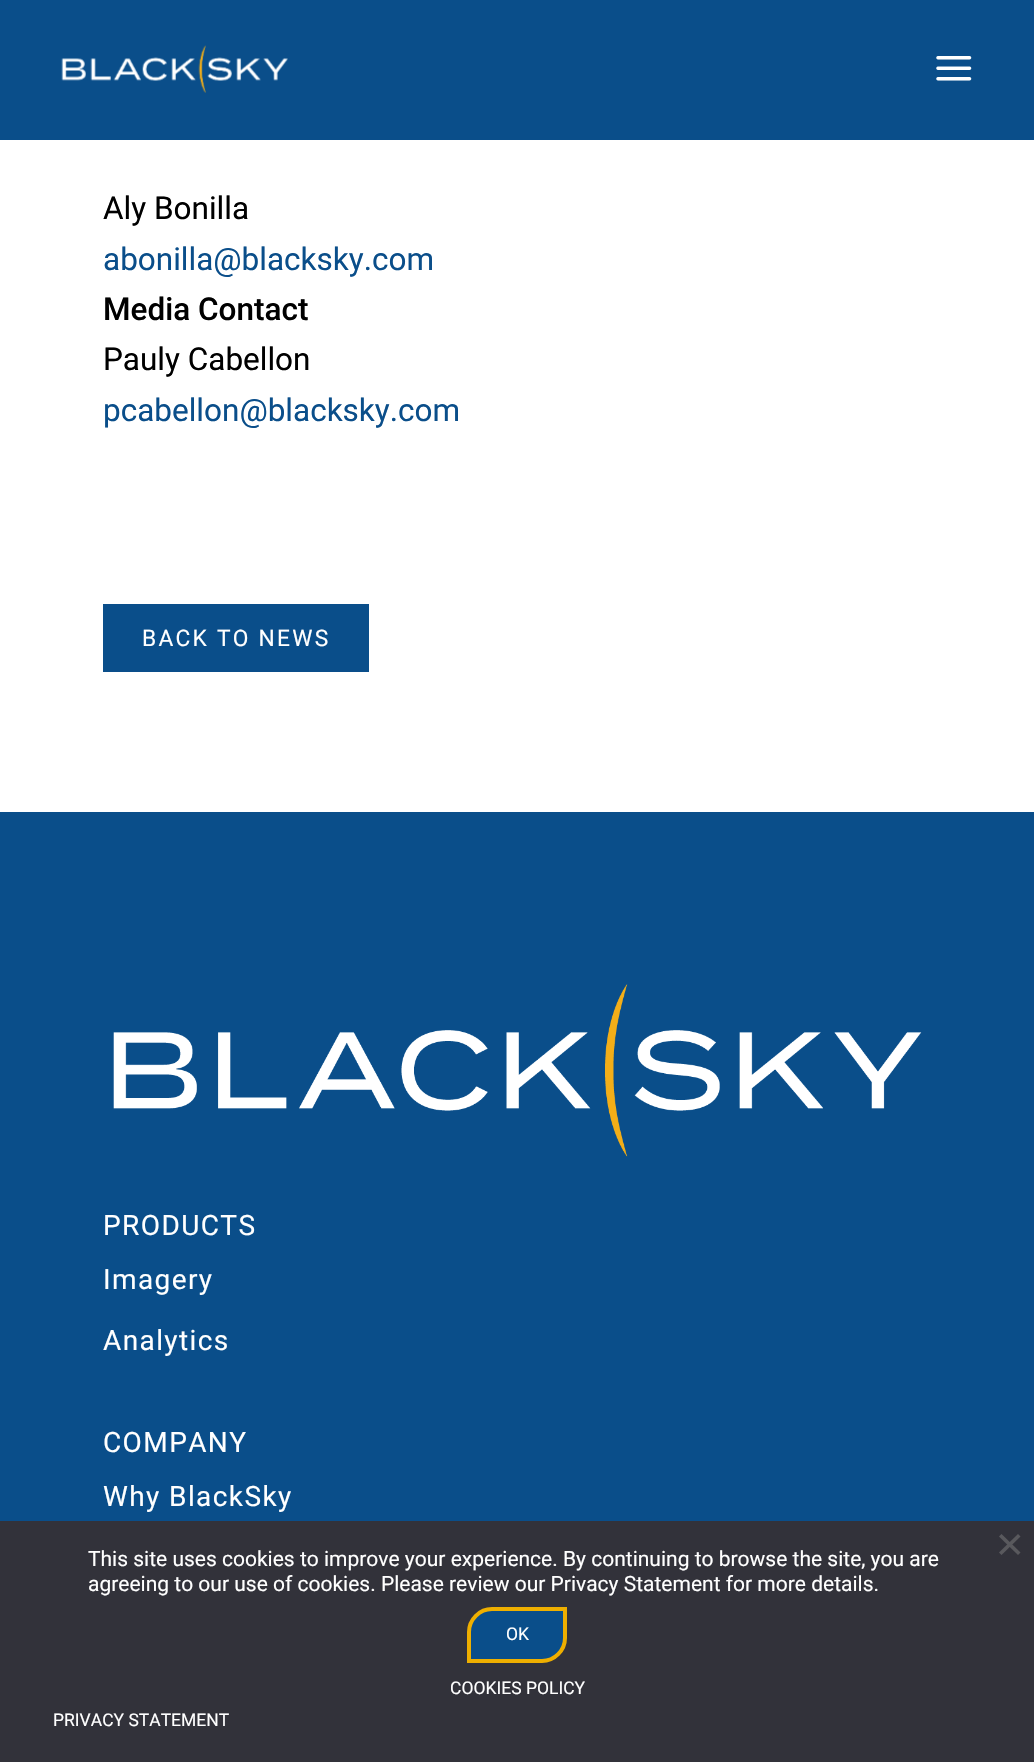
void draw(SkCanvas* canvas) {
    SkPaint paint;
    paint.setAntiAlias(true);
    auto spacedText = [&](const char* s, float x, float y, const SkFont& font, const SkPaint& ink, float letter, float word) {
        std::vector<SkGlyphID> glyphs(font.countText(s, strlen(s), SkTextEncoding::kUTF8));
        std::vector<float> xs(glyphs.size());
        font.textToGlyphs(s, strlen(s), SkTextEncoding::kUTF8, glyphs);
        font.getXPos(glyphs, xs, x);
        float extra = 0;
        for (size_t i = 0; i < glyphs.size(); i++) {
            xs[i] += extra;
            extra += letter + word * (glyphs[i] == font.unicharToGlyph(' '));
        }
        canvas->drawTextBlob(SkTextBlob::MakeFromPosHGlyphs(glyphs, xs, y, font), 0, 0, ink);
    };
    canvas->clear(0xFFFFFFFF);
    paint.setColor(0xFF0A4E8A);
    canvas->drawRect(SkRect::MakeXYWH(0, 0, 1034, 140), paint);
    canvas->drawImageRect(SkImages::DeferredFromEncodedData(SkData::MakeFromFileName("img1.png")), SkRect::MakeXYWH(61, 45, 227, 48), SkSamplingOptions());
    canvas->drawImageRect(SkImages::DeferredFromEncodedData(SkData::MakeFromFileName("img2.png")), SkRect::MakeXYWH(936, 56, 36, 25), SkSamplingOptions());
    SkFont font1(fontMgr->matchFamilyStyle("Roboto", SkFontStyle::Normal()), 31.5f);
    font1.setSubpixel(true);
    paint.setColor(0xFF000000);
    canvas->drawString("Aly Bonilla", 103, 219, font1, paint);
    paint.setColor(0xFF0A4E8A);
    canvas->drawString("abonilla@blacksky.com", 103, 270, font1, paint);
    SkFont font2(fontMgr->matchFamilyStyle("Roboto", SkFontStyle(500, SkFontStyle::kNormal_Width, SkFontStyle::kUpright_Slant)), 31.5f);
    font2.setSubpixel(true);
    paint.setColor(0xFF000000);
    canvas->drawString("Media Contact", 103, 320, font2, paint);
    canvas->drawString("Pauly Cabellon", 103, 370, font1, paint);
    paint.setColor(0xFF0A4E8A);
    canvas->drawString("pcabellon@blacksky.com", 103, 421, font1, paint);
    canvas->drawRect(SkRect::MakeXYWH(103, 604, 266, 68), paint);
    SkFont font3(fontMgr->matchFamilyStyle("Roboto", SkFontStyle::Normal()), 22.75f);
    font3.setSubpixel(true);
    paint.setColor(0xFFFFFFFF);
    spacedText("BACK TO NEWS", 142, 646, font3, paint, 2.25f, 0);
    paint.setColor(0xFF0A4E8A);
    canvas->drawRect(SkRect::MakeXYWH(0, 812, 1034, 709), paint);
    canvas->drawImageRect(SkImages::DeferredFromEncodedData(SkData::MakeFromFileName("img3.png")), SkRect::MakeXYWH(113, 984, 809, 173), SkSamplingOptions());
    SkFont font4(fontMgr->matchFamilyStyle("Roboto", SkFontStyle::Normal()), 28);
    font4.setSubpixel(true);
    paint.setColor(0xFFFFFFFF);
    spacedText("PRODUCTS", 103, 1235, font4, paint, 1.4f, 0);
    spacedText("Imagery", 103, 1289, font4, paint, 1.4f, 0);
    spacedText("Analytics", 103, 1350, font4, paint, 1.4f, 0);
    spacedText("COMPANY", 103, 1452, font4, paint, 1.4f, 0);
    spacedText("Why BlackSky", 103, 1506, font4, paint, 1.4f, 0);
    paint.setColor(0xFF32323A);
    canvas->drawRect(SkRect::MakeXYWH(0, 1521, 1034, 241), paint);
    paint.setColor(0xFF59595D);
    canvas->drawPath(SkPathBuilder().moveTo(1018, 1534).lineTo(1020.5f, 1536.5f).lineTo(1001.5f, 1555).lineTo(999, 1552.5f).close().detach(), paint);
    canvas->drawPath(SkPathBuilder().moveTo(999, 1536.5f).lineTo(1001.5f, 1534).lineTo(1020.5f, 1552.5f).lineTo(1018, 1555).close().detach(), paint);
    SkFont font5(fontMgr->matchFamilyStyle("Roboto", SkFontStyle::Normal()), 21);
    font5.setSubpixel(true);
    paint.setColor(0xFFFFFFFF);
    canvas->drawString("This site uses cookies to improve your experience. By continuing to browse the site, you are", 88, 1566, font5, paint);
    canvas->drawString("agreeing to our use of cookies. Please review our Privacy Statement for more details.", 88, 1591, font5, paint);
    paint.setColor(0xFF0A4E8A);
    canvas->drawPath(SkPathBuilder().moveTo(492, 1609).lineTo(565, 1609).lineTo(565, 1638).cubicTo(565, 1650.5f, 554.5f, 1661, 542, 1661).lineTo(469, 1661).lineTo(469, 1632).cubicTo(469, 1619.5f, 479.5f, 1609, 492, 1609).close().detach(), paint);
    paint.setStyle(SkPaint::kStroke_Style);
    paint.setStrokeWidth(4);
    paint.setColor(0xFFEEAF00);
    canvas->drawPath(SkPathBuilder().moveTo(492, 1609).lineTo(565, 1609).lineTo(565, 1638).cubicTo(565, 1650.5f, 554.5f, 1661, 542, 1661).lineTo(469, 1661).lineTo(469, 1632).cubicTo(469, 1619.5f, 479.5f, 1609, 492, 1609).close().detach(), paint);
    SkFont font6(fontMgr->matchFamilyStyle("Roboto", SkFontStyle::Normal()), 17.5f);
    font6.setSubpixel(true);
    paint.setStyle(SkPaint::kFill_Style);
    paint.setColor(0xFFFFFFFF);
    canvas->drawString("OK", 506, 1640, font6, paint);
    canvas->drawString("COOKIES POLICY", 450, 1694, font6, paint);
    canvas->drawString("PRIVACY STATEMENT", 53, 1726, font6, paint);
}
